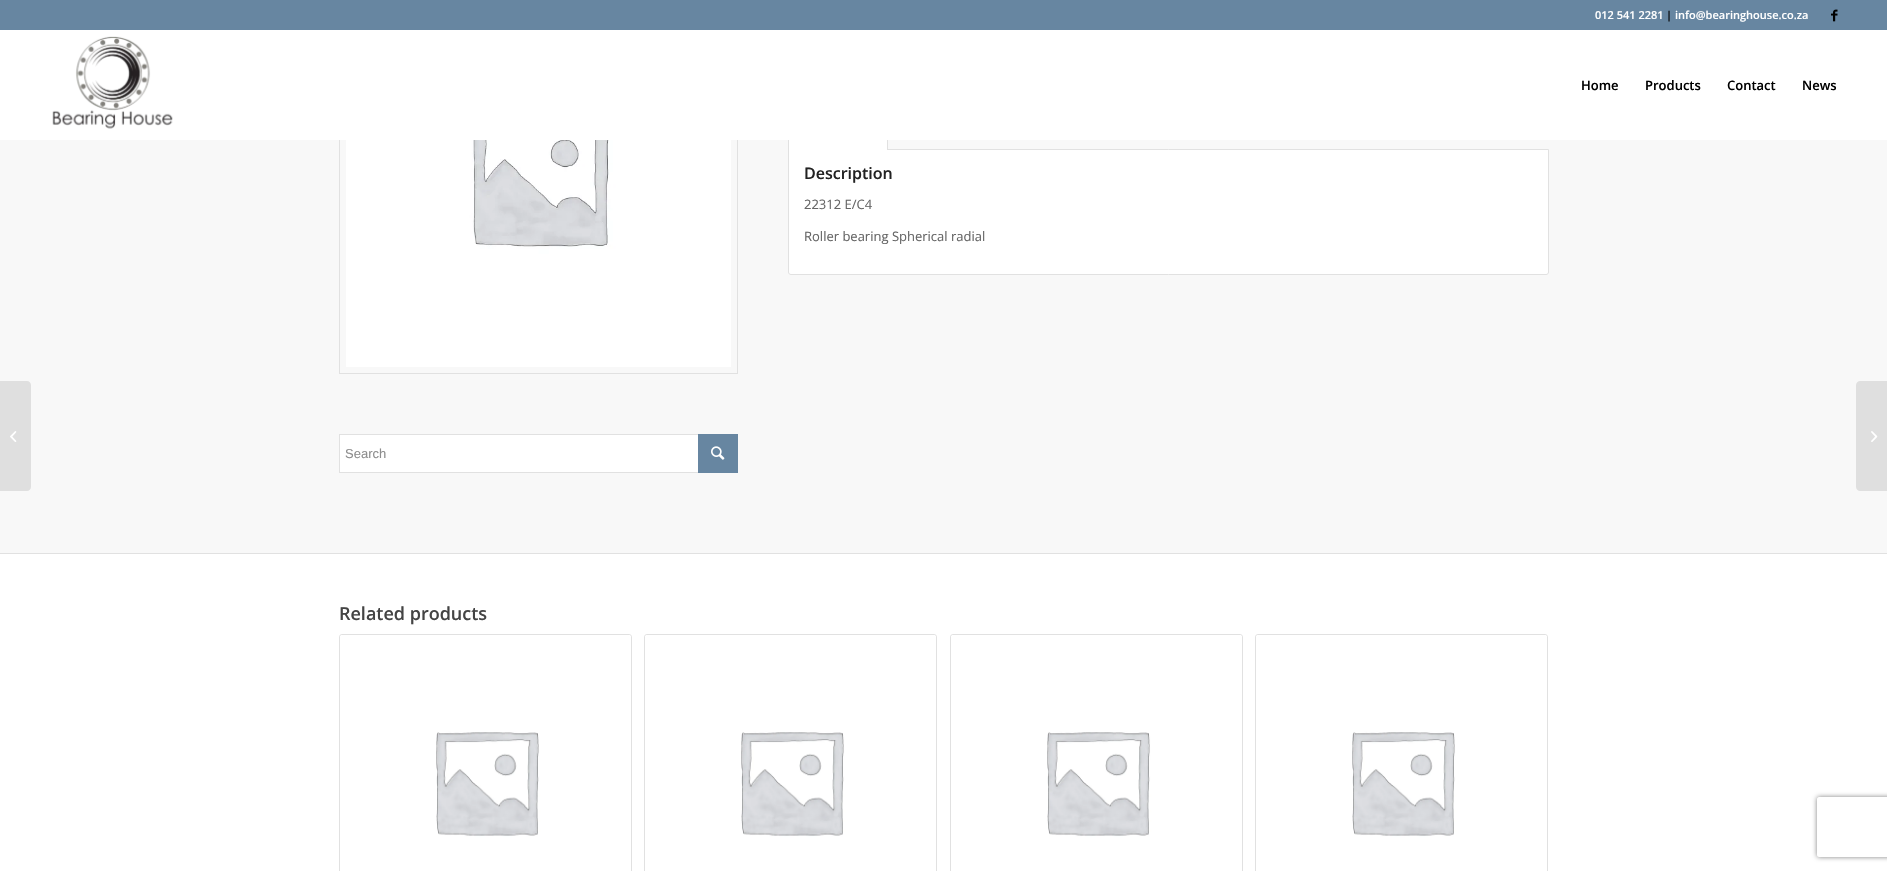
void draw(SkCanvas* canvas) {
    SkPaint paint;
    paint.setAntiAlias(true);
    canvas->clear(0xFFFFFFFF);
    paint.setColor(0xFFF8F8F8);
    canvas->drawRect(SkRect::MakeXYWH(0, 140, 1887, 413), paint);
    paint.setStyle(SkPaint::kStroke_Style);
    paint.setStrokeWidth(1);
    paint.setColor(0xFFE1E1E1);
    canvas->drawRect(SkRect::MakeXYWH(339.5f, -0.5f, 398, 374), paint);
    paint.setStyle(SkPaint::kFill_Style);
    paint.setColor(0xFF6786A1);
    canvas->drawRect(SkRect::MakeXYWH(0, 0, 1887, 30), paint);
    SkFont font1(fontMgr->matchFamilyStyle("Open Sans", SkFontStyle(600, SkFontStyle::kNormal_Width, SkFontStyle::kUpright_Slant)), 11);
    font1.setSubpixel(true);
    paint.setColor(0xFFFFFFFF);
    canvas->drawString("012 541 2281", 1595, 19, font1, paint);
    paint.setColor(0xFF000000);
    canvas->drawString("|", 1666, 19, font1, paint);
    paint.setColor(0xFFFFFFFF);
    canvas->drawString("info@bearinghouse.co.za", 1675, 19, font1, paint);
    canvas->drawImageRect(SkImages::DeferredFromEncodedData(SkData::MakeFromFileName("img1.png")), SkRect::MakeXYWH(1831, 9, 7, 13), SkSamplingOptions());
    canvas->drawRect(SkRect::MakeXYWH(339, 30, 399, 110), paint);
    canvas->drawImageRect(SkImages::DeferredFromEncodedData(SkData::MakeFromFileName("img2.png")), SkRect::MakeXYWH(52, 36, 121, 93), SkSamplingOptions());
    SkFont font2(fontMgr->matchFamilyStyle("Open Sans", SkFontStyle(600, SkFontStyle::kNormal_Width, SkFontStyle::kUpright_Slant)), 13);
    font2.setSubpixel(true);
    paint.setColor(0xFF000000);
    canvas->drawString("Home", 1581, 90, font2, paint);
    canvas->drawString("Products", 1645, 90, font2, paint);
    canvas->drawString("Contact", 1727, 90, font2, paint);
    canvas->drawString("News", 1802, 90, font2, paint);
    paint.setColor(0xFFDFDFDF);
    canvas->drawPath(SkPathBuilder().moveTo(0, 381).lineTo(27, 381).cubicTo(29, 381, 31, 383, 31, 385).lineTo(31, 487).cubicTo(31, 489, 29, 491, 27, 491).lineTo(0, 491).close().detach(), paint);
    canvas->drawImageRect(SkImages::DeferredFromEncodedData(SkData::MakeFromFileName("img3.png")), SkRect::MakeXYWH(10, 431, 7, 11), SkSamplingOptions());
    paint.setColor(0xFFFFFFFF);
    canvas->drawPath(SkPathBuilder().moveTo(788.5f, 149.5f).lineTo(1548.5f, 149.5f).lineTo(1548.5f, 272).cubicTo(1548.5f, 273.5f, 1547.5f, 274.5f, 1546, 274.5f).lineTo(791, 274.5f).cubicTo(789.5f, 274.5f, 788.5f, 273.5f, 788.5f, 272).close().detach(), paint);
    paint.setStyle(SkPaint::kStroke_Style);
    paint.setColor(0xFFE1E1E1);
    canvas->drawPath(SkPathBuilder().moveTo(788.5f, 149.5f).lineTo(1548.5f, 149.5f).lineTo(1548.5f, 272).cubicTo(1548.5f, 273.5f, 1547.5f, 274.5f, 1546, 274.5f).lineTo(791, 274.5f).cubicTo(789.5f, 274.5f, 788.5f, 273.5f, 788.5f, 272).close().detach(), paint);
    paint.setStyle(SkPaint::kFill_Style);
    paint.setColor(0xFFFFFFFF);
    canvas->drawRect(SkRect::MakeXYWH(789, 140, 98, 10), paint);
    paint.setColor(0xFFE1E1E1);
    canvas->drawRect(SkRect::MakeXYWH(887, 140, 1, 10), paint);
    canvas->drawRect(SkRect::MakeXYWH(788, 140, 1, 10), paint);
    SkFont font3(fontMgr->matchFamilyStyle("Open Sans", SkFontStyle(600, SkFontStyle::kNormal_Width, SkFontStyle::kUpright_Slant)), 16);
    font3.setSubpixel(true);
    paint.setColor(0xFF222222);
    canvas->drawString("Description", 804, 179, font3, paint);
    SkFont font4(fontMgr->matchFamilyStyle("Open Sans", SkFontStyle::Normal()), 13);
    font4.setSubpixel(true);
    paint.setColor(0xFF666666);
    canvas->drawString("22312 E/C4", 804, 209, font4, paint);
    canvas->drawString("Roller bearing Spherical radial", 804, 241, font4, paint);
    canvas->drawImageRect(SkImages::DeferredFromEncodedData(SkData::MakeFromFileName("img4.png")), SkRect::MakeXYWH(346, 140, 385, 227), SkSamplingOptions());
    paint.setColor(0xFFFFFFFF);
    canvas->drawRect(SkRect::MakeXYWH(340, 435, 358, 37), paint);
    paint.setStyle(SkPaint::kStroke_Style);
    paint.setColor(0xFFE1E1E1);
    canvas->drawRect(SkRect::MakeXYWH(339.5f, 434.5f, 398, 38), paint);
    SkFont font5(fontMgr->matchFamilyStyle("Liberation Sans", SkFontStyle::Normal()), 13);
    font5.setSubpixel(true);
    paint.setStyle(SkPaint::kFill_Style);
    paint.setColor(0xFF8D8D8D);
    canvas->drawString("Search", 345, 458, font5, paint);
    paint.setColor(0xFF6786A1);
    canvas->drawRect(SkRect::MakeXYWH(698, 434, 40, 39), paint);
    canvas->drawImageRect(SkImages::DeferredFromEncodedData(SkData::MakeFromFileName("img5.png")), SkRect::MakeXYWH(711, 446, 14, 14), SkSamplingOptions());
    paint.setColor(0xFFE1E1E1);
    canvas->drawRect(SkRect::MakeXYWH(0, 553, 1887, 1), paint);
    SkFont font6(fontMgr->matchFamilyStyle("Open Sans", SkFontStyle(600, SkFontStyle::kNormal_Width, SkFontStyle::kUpright_Slant)), 18);
    font6.setSubpixel(true);
    paint.setColor(0xFF444444);
    canvas->drawString("Related products", 339, 620, font6, paint);
    paint.setStyle(SkPaint::kStroke_Style);
    paint.setColor(0xFFE1E1E1);
    canvas->drawRoundRect(SkRect::MakeXYWH(339.5f, 634.5f, 292, 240), 2.5f, 2.5f, paint);
    canvas->drawImageRect(SkImages::DeferredFromEncodedData(SkData::MakeFromFileName("img6.png")), SkRect::MakeXYWH(340, 635, 291, 236), SkSamplingOptions());
    canvas->drawRoundRect(SkRect::MakeXYWH(644.5f, 634.5f, 292, 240), 2.5f, 2.5f, paint);
    canvas->drawImageRect(SkImages::DeferredFromEncodedData(SkData::MakeFromFileName("img6.png")), SkRect::MakeXYWH(645, 635, 291, 236), SkSamplingOptions());
    canvas->drawRoundRect(SkRect::MakeXYWH(950.5f, 634.5f, 292, 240), 2.5f, 2.5f, paint);
    canvas->drawImageRect(SkImages::DeferredFromEncodedData(SkData::MakeFromFileName("img6.png")), SkRect::MakeXYWH(951, 635, 291, 236), SkSamplingOptions());
    canvas->drawRoundRect(SkRect::MakeXYWH(1255.5f, 634.5f, 292, 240), 2.5f, 2.5f, paint);
    canvas->drawImageRect(SkImages::DeferredFromEncodedData(SkData::MakeFromFileName("img6.png")), SkRect::MakeXYWH(1256, 635, 291, 236), SkSamplingOptions());
    paint.setStyle(SkPaint::kFill_Style);
    paint.setColor(0xFFDFDFDF);
    canvas->drawPath(SkPathBuilder().moveTo(1860, 381).lineTo(1887, 381).lineTo(1887, 491).lineTo(1860, 491).cubicTo(1858, 491, 1856, 489, 1856, 487).lineTo(1856, 385).cubicTo(1856, 383, 1858, 381, 1860, 381).close().detach(), paint);
    canvas->drawImageRect(SkImages::DeferredFromEncodedData(SkData::MakeFromFileName("img7.png")), SkRect::MakeXYWH(1871, 431, 7, 11), SkSamplingOptions());
    canvas->save();
    canvas->clipPath(SkPathBuilder(SkPathFillType::kEvenOdd).moveTo(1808, 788).lineTo(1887, 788).lineTo(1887, 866).lineTo(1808, 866).close().moveTo(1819, 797).lineTo(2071, 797).cubicTo(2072, 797, 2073, 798, 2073, 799).lineTo(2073, 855).cubicTo(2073, 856, 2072, 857, 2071, 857).lineTo(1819, 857).cubicTo(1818, 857, 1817, 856, 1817, 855).lineTo(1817, 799).cubicTo(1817, 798, 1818, 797, 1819, 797).close().detach(), true);
    paint.setColor(0xFF808080);
    paint.setMaskFilter(SkMaskFilter::MakeBlur(kNormal_SkBlurStyle, 2.5f));
    canvas->drawRoundRect(SkRect::MakeXYWH(1817, 797, 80, 60), 2, 2, paint);
    paint.setMaskFilter(nullptr);
    canvas->restore();
}
